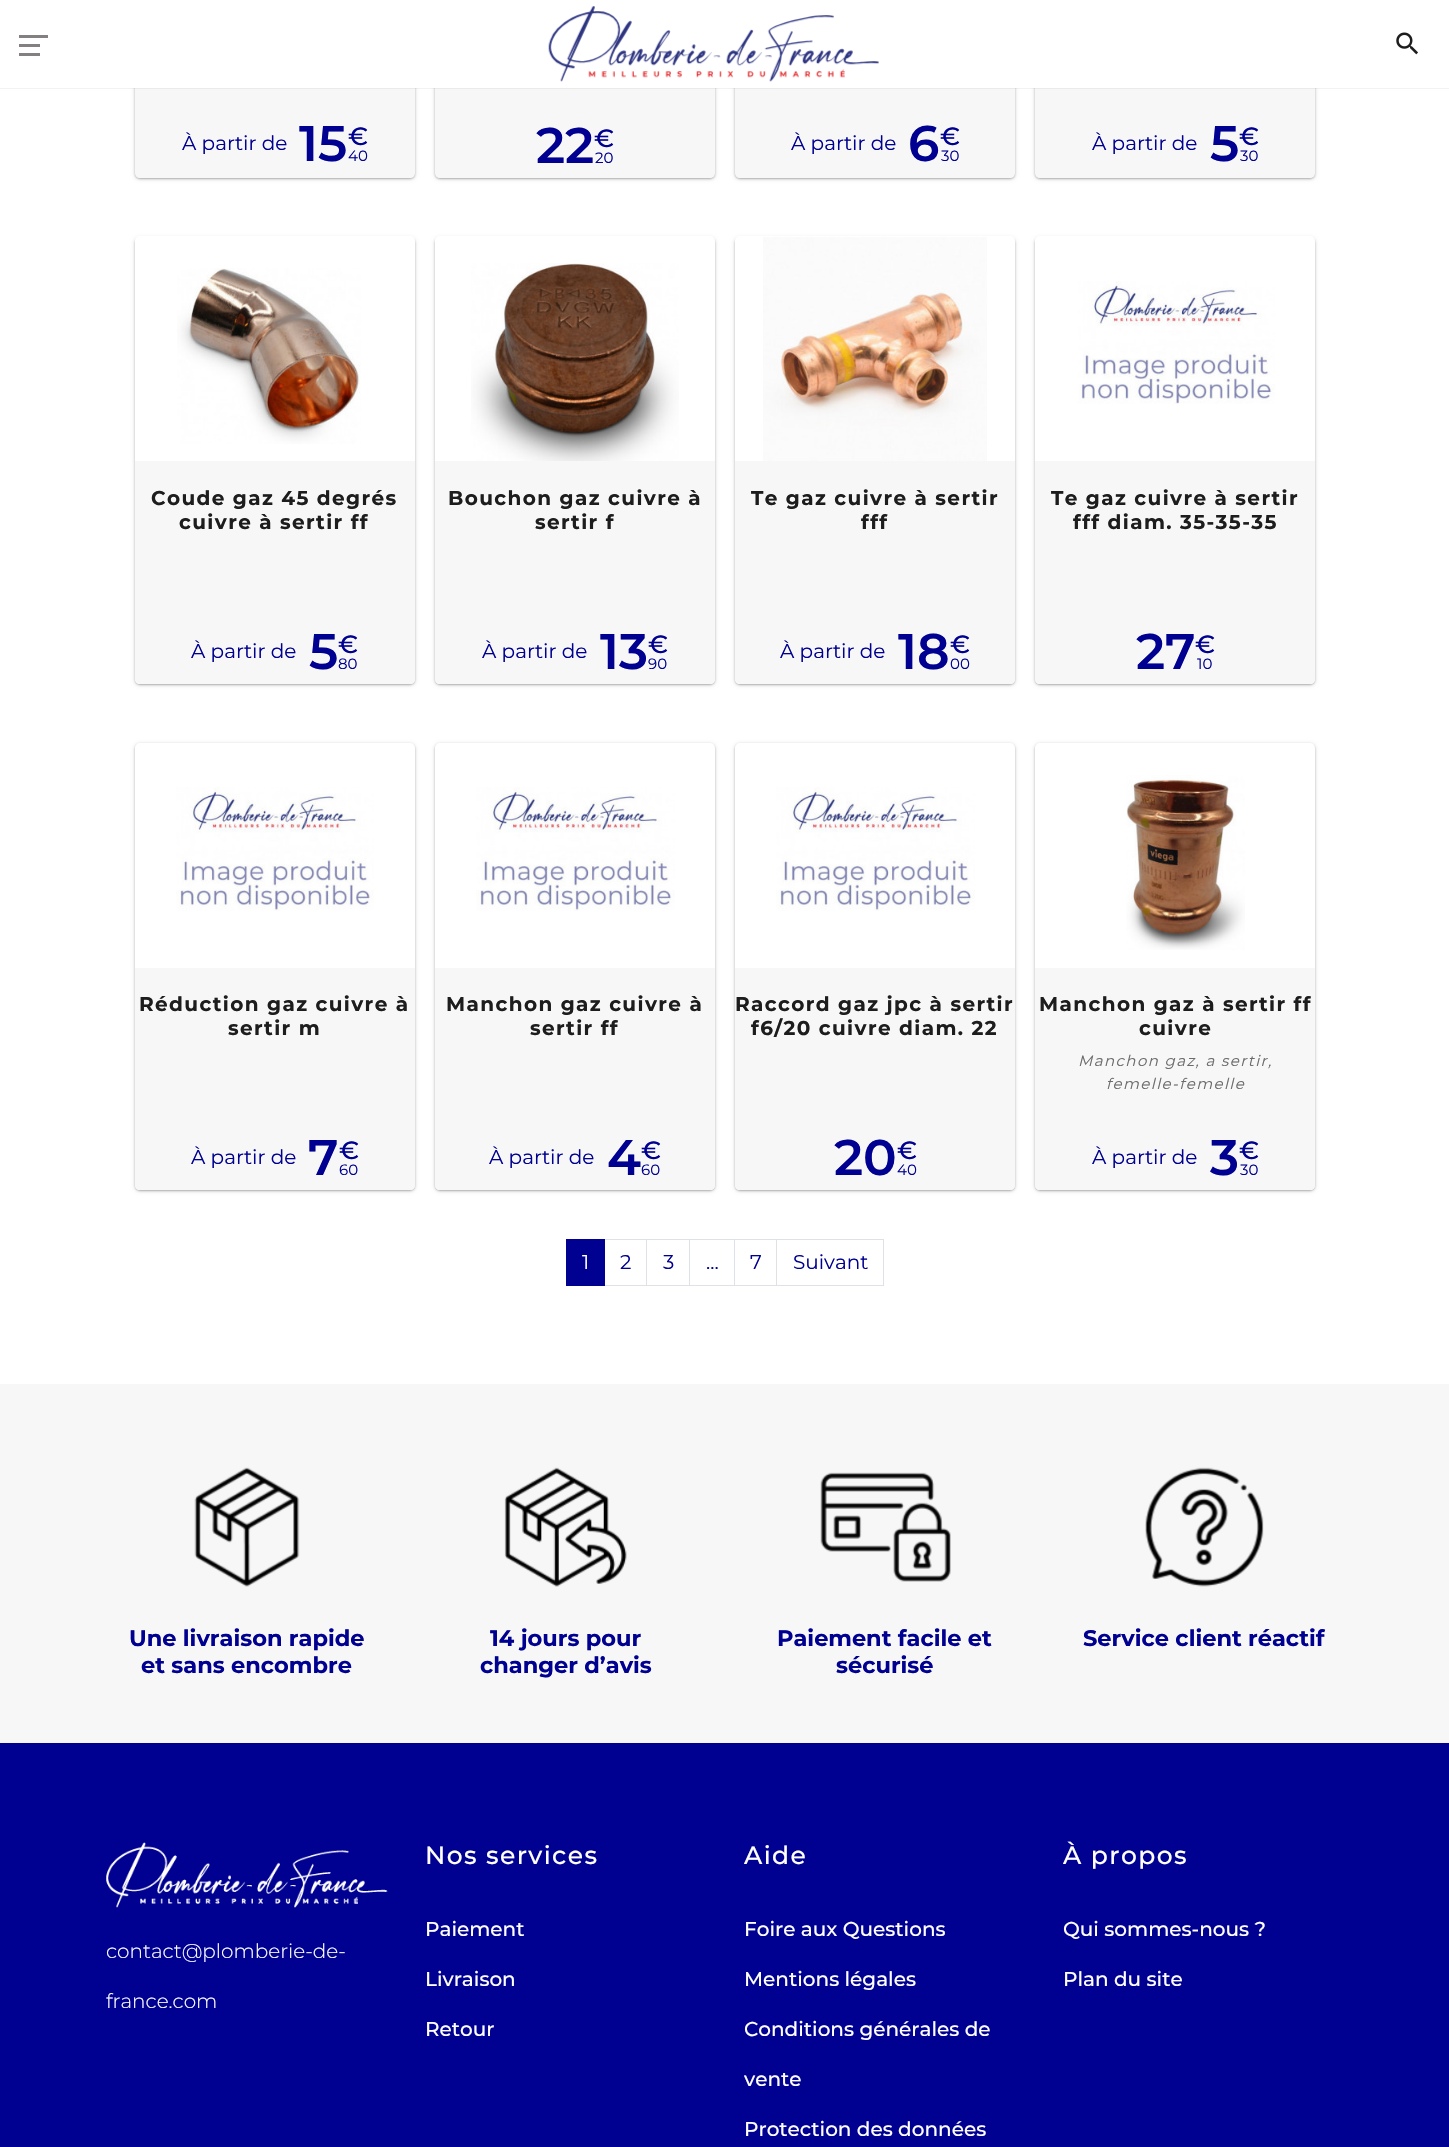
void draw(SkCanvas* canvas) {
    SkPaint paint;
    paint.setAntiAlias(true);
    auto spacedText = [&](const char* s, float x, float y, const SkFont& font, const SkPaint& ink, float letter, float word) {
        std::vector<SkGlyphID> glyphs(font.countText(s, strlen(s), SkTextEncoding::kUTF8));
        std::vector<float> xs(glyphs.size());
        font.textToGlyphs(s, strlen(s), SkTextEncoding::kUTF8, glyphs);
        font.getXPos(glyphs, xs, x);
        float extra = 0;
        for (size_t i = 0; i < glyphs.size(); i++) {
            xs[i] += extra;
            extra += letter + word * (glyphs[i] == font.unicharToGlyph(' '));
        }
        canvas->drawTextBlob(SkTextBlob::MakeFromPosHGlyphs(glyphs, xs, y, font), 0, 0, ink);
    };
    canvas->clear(0xFFFFFFFF);
    paint.setColor(0x3D000000);
    paint.setMaskFilter(SkMaskFilter::MakeBlur(kNormal_SkBlurStyle, 1));
    canvas->drawRoundRect(SkRect::MakeXYWH(135, -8, 280, 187), 5, 5, paint);
    paint.setMaskFilter(nullptr);
    paint.setColor(0x24000000);
    paint.setMaskFilter(SkMaskFilter::MakeBlur(kNormal_SkBlurStyle, 2));
    canvas->drawRoundRect(SkRect::MakeXYWH(135, -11, 280, 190), 5, 5, paint);
    paint.setMaskFilter(nullptr);
    paint.setColor(0xFFF7F7F7);
    canvas->drawPath(SkPathBuilder().moveTo(135, -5).lineTo(415, -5).lineTo(415, 173).cubicTo(415, 176, 413, 178, 410, 178).lineTo(140, 178).cubicTo(137, 178, 135, 176, 135, 173).close().detach(), paint);
    paint.setColor(0x3D000000);
    paint.setMaskFilter(SkMaskFilter::MakeBlur(kNormal_SkBlurStyle, 1));
    canvas->drawRoundRect(SkRect::MakeXYWH(435, -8, 280, 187), 5, 5, paint);
    paint.setMaskFilter(nullptr);
    paint.setColor(0x24000000);
    paint.setMaskFilter(SkMaskFilter::MakeBlur(kNormal_SkBlurStyle, 2));
    canvas->drawRoundRect(SkRect::MakeXYWH(435, -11, 280, 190), 5, 5, paint);
    paint.setMaskFilter(nullptr);
    paint.setColor(0xFFF7F7F7);
    canvas->drawPath(SkPathBuilder().moveTo(435, -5).lineTo(715, -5).lineTo(715, 173).cubicTo(715, 176, 713, 178, 710, 178).lineTo(440, 178).cubicTo(437, 178, 435, 176, 435, 173).close().detach(), paint);
    paint.setColor(0x3D000000);
    paint.setMaskFilter(SkMaskFilter::MakeBlur(kNormal_SkBlurStyle, 1));
    canvas->drawRoundRect(SkRect::MakeXYWH(735, -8, 280, 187), 5, 5, paint);
    paint.setMaskFilter(nullptr);
    paint.setColor(0x24000000);
    paint.setMaskFilter(SkMaskFilter::MakeBlur(kNormal_SkBlurStyle, 2));
    canvas->drawRoundRect(SkRect::MakeXYWH(735, -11, 280, 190), 5, 5, paint);
    paint.setMaskFilter(nullptr);
    paint.setColor(0xFFF7F7F7);
    canvas->drawPath(SkPathBuilder().moveTo(735, -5).lineTo(1015, -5).lineTo(1015, 173).cubicTo(1015, 176, 1013, 178, 1010, 178).lineTo(740, 178).cubicTo(737, 178, 735, 176, 735, 173).close().detach(), paint);
    paint.setColor(0x3D000000);
    paint.setMaskFilter(SkMaskFilter::MakeBlur(kNormal_SkBlurStyle, 1));
    canvas->drawRoundRect(SkRect::MakeXYWH(1035, -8, 280, 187), 5, 5, paint);
    paint.setMaskFilter(nullptr);
    paint.setColor(0x24000000);
    paint.setMaskFilter(SkMaskFilter::MakeBlur(kNormal_SkBlurStyle, 2));
    canvas->drawRoundRect(SkRect::MakeXYWH(1035, -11, 280, 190), 5, 5, paint);
    paint.setMaskFilter(nullptr);
    paint.setColor(0xFFF7F7F7);
    canvas->drawPath(SkPathBuilder().moveTo(1035, -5).lineTo(1315, -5).lineTo(1315, 173).cubicTo(1315, 176, 1313, 178, 1310, 178).lineTo(1040, 178).cubicTo(1037, 178, 1035, 176, 1035, 173).close().detach(), paint);
    paint.setColor(0x4D000000);
    paint.setMaskFilter(SkMaskFilter::MakeBlur(kNormal_SkBlurStyle, 0.5f));
    canvas->drawRect(SkRect::MakeXYWH(0, 0, 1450, 88), paint);
    paint.setMaskFilter(nullptr);
    paint.setColor(0xFFFFFFFF);
    canvas->drawRect(SkRect::MakeXYWH(0, 0, 1449, 88), paint);
    paint.setColor(0xFF848080);
    canvas->drawRect(SkRect::MakeXYWH(19, 44, 21, 3), paint);
    canvas->drawRect(SkRect::MakeXYWH(19, 35, 29, 3), paint);
    canvas->drawRect(SkRect::MakeXYWH(19, 53, 21, 3), paint);
    canvas->drawImageRect(SkImages::DeferredFromEncodedData(SkData::MakeFromFileName("img1.png")), SkRect::MakeXYWH(548, 6, 331, 76), SkSamplingOptions());
    canvas->drawImageRect(SkImages::DeferredFromEncodedData(SkData::MakeFromFileName("img2.png")), SkRect::MakeXYWH(1396, 32, 22, 23), SkSamplingOptions());
    SkFont font1(fontMgr->matchFamilyStyle("Montserrat", SkFontStyle::Normal()), 20);
    font1.setSubpixel(true);
    paint.setColor(0xFF000091);
    canvas->drawString("À partir de", 182, 150, font1, paint);
    SkFont font2(fontMgr->matchFamilyStyle("Montserrat", SkFontStyle(600, SkFontStyle::kNormal_Width, SkFontStyle::kUpright_Slant)), 50);
    font2.setSubpixel(true);
    canvas->drawString("15", 299, 161, font2, paint);
    SkFont font3(fontMgr->matchFamilyStyle("Montserrat", SkFontStyle(500, SkFontStyle::kNormal_Width, SkFontStyle::kUpright_Slant)), 25);
    font3.setSubpixel(true);
    canvas->drawString("€", 348, 145, font3, paint);
    SkFont font4(fontMgr->matchFamilyStyle("Montserrat", SkFontStyle::Normal()), 15);
    font4.setSubpixel(true);
    canvas->drawString("40", 348, 161, font4, paint);
    canvas->drawString("22", 536, 163, font2, paint);
    canvas->drawString("€", 594, 147, font3, paint);
    canvas->drawString("20", 595, 163, font4, paint);
    canvas->drawString("À partir de", 791, 150, font1, paint);
    canvas->drawString("6", 908, 161, font2, paint);
    canvas->drawString("€", 940, 145, font3, paint);
    canvas->drawString("30", 941, 161, font4, paint);
    canvas->drawString("À partir de", 1092, 150, font1, paint);
    canvas->drawString("5", 1210, 161, font2, paint);
    canvas->drawString("€", 1239, 145, font3, paint);
    canvas->drawString("30", 1240, 161, font4, paint);
    canvas->save();
    canvas->clipPath(SkPathBuilder(SkPathFillType::kEvenOdd).moveTo(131, 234).lineTo(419, 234).lineTo(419, 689).lineTo(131, 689).close().moveTo(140, 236).lineTo(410, 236).cubicTo(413, 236, 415, 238, 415, 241).lineTo(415, 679).cubicTo(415, 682, 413, 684, 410, 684).lineTo(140, 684).cubicTo(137, 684, 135, 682, 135, 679).lineTo(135, 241).cubicTo(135, 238, 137, 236, 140, 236).close().detach(), true);
    paint.setColor(0x3D000000);
    paint.setMaskFilter(SkMaskFilter::MakeBlur(kNormal_SkBlurStyle, 1));
    canvas->drawRoundRect(SkRect::MakeXYWH(135, 238, 280, 447), 5, 5, paint);
    paint.setMaskFilter(nullptr);
    canvas->restore();
    canvas->save();
    canvas->clipPath(SkPathBuilder(SkPathFillType::kEvenOdd).moveTo(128, 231).lineTo(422, 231).lineTo(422, 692).lineTo(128, 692).close().moveTo(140, 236).lineTo(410, 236).cubicTo(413, 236, 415, 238, 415, 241).lineTo(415, 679).cubicTo(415, 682, 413, 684, 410, 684).lineTo(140, 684).cubicTo(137, 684, 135, 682, 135, 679).lineTo(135, 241).cubicTo(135, 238, 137, 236, 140, 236).close().detach(), true);
    paint.setColor(0x24000000);
    paint.setMaskFilter(SkMaskFilter::MakeBlur(kNormal_SkBlurStyle, 2));
    canvas->drawRoundRect(SkRect::MakeXYWH(135, 238, 280, 447), 5, 5, paint);
    paint.setMaskFilter(nullptr);
    canvas->restore();
    canvas->drawImageRect(SkImages::DeferredFromEncodedData(SkData::MakeFromFileName("img3.png")), SkRect::MakeXYWH(177, 268, 184, 176), SkSamplingOptions());
    paint.setColor(0xFFF7F7F7);
    canvas->drawPath(SkPathBuilder().moveTo(135, 461).lineTo(415, 461).lineTo(415, 679).cubicTo(415, 682, 413, 684, 410, 684).lineTo(140, 684).cubicTo(137, 684, 135, 682, 135, 679).close().detach(), paint);
    SkFont font5(fontMgr->matchFamilyStyle("Montserrat", SkFontStyle::Bold()), 20);
    font5.setSubpixel(true);
    paint.setColor(0xFF1D1D1D);
    spacedText("Coude gaz 45 degrés", 151, 505, font5, paint, 1.4f, 0);
    spacedText("cuivre à sertir ff", 179, 529, font5, paint, 1.4f, 0);
    paint.setColor(0xFF000091);
    canvas->drawString("À partir de", 191, 658, font1, paint);
    canvas->drawString("5", 309, 669, font2, paint);
    canvas->drawString("€", 338, 653, font3, paint);
    canvas->drawString("80", 338, 669, font4, paint);
    canvas->save();
    canvas->clipPath(SkPathBuilder(SkPathFillType::kEvenOdd).moveTo(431, 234).lineTo(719, 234).lineTo(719, 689).lineTo(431, 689).close().moveTo(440, 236).lineTo(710, 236).cubicTo(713, 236, 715, 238, 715, 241).lineTo(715, 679).cubicTo(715, 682, 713, 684, 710, 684).lineTo(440, 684).cubicTo(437, 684, 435, 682, 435, 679).lineTo(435, 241).cubicTo(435, 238, 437, 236, 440, 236).close().detach(), true);
    paint.setColor(0x3D000000);
    paint.setMaskFilter(SkMaskFilter::MakeBlur(kNormal_SkBlurStyle, 1));
    canvas->drawRoundRect(SkRect::MakeXYWH(435, 238, 280, 447), 5, 5, paint);
    paint.setMaskFilter(nullptr);
    canvas->restore();
    canvas->save();
    canvas->clipPath(SkPathBuilder(SkPathFillType::kEvenOdd).moveTo(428, 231).lineTo(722, 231).lineTo(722, 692).lineTo(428, 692).close().moveTo(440, 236).lineTo(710, 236).cubicTo(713, 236, 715, 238, 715, 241).lineTo(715, 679).cubicTo(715, 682, 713, 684, 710, 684).lineTo(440, 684).cubicTo(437, 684, 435, 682, 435, 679).lineTo(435, 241).cubicTo(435, 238, 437, 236, 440, 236).close().detach(), true);
    paint.setColor(0x24000000);
    paint.setMaskFilter(SkMaskFilter::MakeBlur(kNormal_SkBlurStyle, 2));
    canvas->drawRoundRect(SkRect::MakeXYWH(435, 238, 280, 447), 5, 5, paint);
    paint.setMaskFilter(nullptr);
    canvas->restore();
    canvas->drawImageRect(SkImages::DeferredFromEncodedData(SkData::MakeFromFileName("img4.png")), SkRect::MakeXYWH(471, 263, 208, 198), SkSamplingOptions());
    paint.setColor(0xFFF7F7F7);
    canvas->drawPath(SkPathBuilder().moveTo(435, 461).lineTo(715, 461).lineTo(715, 679).cubicTo(715, 682, 713, 684, 710, 684).lineTo(440, 684).cubicTo(437, 684, 435, 682, 435, 679).close().detach(), paint);
    paint.setColor(0xFF1D1D1D);
    spacedText("Bouchon gaz cuivre à", 448, 505, font5, paint, 1.4f, 0);
    spacedText("sertir f", 535, 529, font5, paint, 1.4f, 0);
    paint.setColor(0xFF000091);
    canvas->drawString("À partir de", 482, 658, font1, paint);
    canvas->drawString("13", 600, 669, font2, paint);
    canvas->drawString("€", 648, 653, font3, paint);
    canvas->drawString("90", 648, 669, font4, paint);
    canvas->save();
    canvas->clipPath(SkPathBuilder(SkPathFillType::kEvenOdd).moveTo(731, 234).lineTo(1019, 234).lineTo(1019, 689).lineTo(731, 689).close().moveTo(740, 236).lineTo(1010, 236).cubicTo(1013, 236, 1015, 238, 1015, 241).lineTo(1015, 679).cubicTo(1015, 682, 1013, 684, 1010, 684).lineTo(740, 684).cubicTo(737, 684, 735, 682, 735, 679).lineTo(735, 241).cubicTo(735, 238, 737, 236, 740, 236).close().detach(), true);
    paint.setColor(0x3D000000);
    paint.setMaskFilter(SkMaskFilter::MakeBlur(kNormal_SkBlurStyle, 1));
    canvas->drawRoundRect(SkRect::MakeXYWH(735, 238, 280, 447), 5, 5, paint);
    paint.setMaskFilter(nullptr);
    canvas->restore();
    canvas->save();
    canvas->clipPath(SkPathBuilder(SkPathFillType::kEvenOdd).moveTo(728, 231).lineTo(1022, 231).lineTo(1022, 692).lineTo(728, 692).close().moveTo(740, 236).lineTo(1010, 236).cubicTo(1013, 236, 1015, 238, 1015, 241).lineTo(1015, 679).cubicTo(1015, 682, 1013, 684, 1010, 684).lineTo(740, 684).cubicTo(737, 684, 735, 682, 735, 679).lineTo(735, 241).cubicTo(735, 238, 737, 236, 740, 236).close().detach(), true);
    paint.setColor(0x24000000);
    paint.setMaskFilter(SkMaskFilter::MakeBlur(kNormal_SkBlurStyle, 2));
    canvas->drawRoundRect(SkRect::MakeXYWH(735, 238, 280, 447), 5, 5, paint);
    paint.setMaskFilter(nullptr);
    canvas->restore();
    canvas->drawImageRect(SkImages::DeferredFromEncodedData(SkData::MakeFromFileName("img5.png")), SkRect::MakeXYWH(763, 237, 224, 224), SkSamplingOptions());
    paint.setColor(0xFFF7F7F7);
    canvas->drawPath(SkPathBuilder().moveTo(735, 461).lineTo(1015, 461).lineTo(1015, 679).cubicTo(1015, 682, 1013, 684, 1010, 684).lineTo(740, 684).cubicTo(737, 684, 735, 682, 735, 679).close().detach(), paint);
    paint.setColor(0xFF1D1D1D);
    spacedText("Te gaz cuivre à sertir", 751, 505, font5, paint, 1.4f, 0);
    spacedText("fff", 861, 529, font5, paint, 1.4f, 0);
    paint.setColor(0xFF000091);
    canvas->drawString("À partir de", 780, 658, font1, paint);
    canvas->drawString("18", 898, 669, font2, paint);
    canvas->drawString("€", 950, 653, font3, paint);
    canvas->drawString("00", 950, 669, font4, paint);
    canvas->save();
    canvas->clipPath(SkPathBuilder(SkPathFillType::kEvenOdd).moveTo(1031, 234).lineTo(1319, 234).lineTo(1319, 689).lineTo(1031, 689).close().moveTo(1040, 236).lineTo(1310, 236).cubicTo(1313, 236, 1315, 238, 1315, 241).lineTo(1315, 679).cubicTo(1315, 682, 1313, 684, 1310, 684).lineTo(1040, 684).cubicTo(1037, 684, 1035, 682, 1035, 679).lineTo(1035, 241).cubicTo(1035, 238, 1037, 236, 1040, 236).close().detach(), true);
    paint.setColor(0x3D000000);
    paint.setMaskFilter(SkMaskFilter::MakeBlur(kNormal_SkBlurStyle, 1));
    canvas->drawRoundRect(SkRect::MakeXYWH(1035, 238, 280, 447), 5, 5, paint);
    paint.setMaskFilter(nullptr);
    canvas->restore();
    canvas->save();
    canvas->clipPath(SkPathBuilder(SkPathFillType::kEvenOdd).moveTo(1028, 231).lineTo(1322, 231).lineTo(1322, 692).lineTo(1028, 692).close().moveTo(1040, 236).lineTo(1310, 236).cubicTo(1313, 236, 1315, 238, 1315, 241).lineTo(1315, 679).cubicTo(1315, 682, 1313, 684, 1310, 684).lineTo(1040, 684).cubicTo(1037, 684, 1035, 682, 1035, 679).lineTo(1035, 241).cubicTo(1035, 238, 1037, 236, 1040, 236).close().detach(), true);
    paint.setColor(0x24000000);
    paint.setMaskFilter(SkMaskFilter::MakeBlur(kNormal_SkBlurStyle, 2));
    canvas->drawRoundRect(SkRect::MakeXYWH(1035, 238, 280, 447), 5, 5, paint);
    paint.setMaskFilter(nullptr);
    canvas->restore();
    canvas->drawImageRect(SkImages::DeferredFromEncodedData(SkData::MakeFromFileName("img6.png")), SkRect::MakeXYWH(1078, 281, 197, 123), SkSamplingOptions());
    paint.setColor(0xFFF7F7F7);
    canvas->drawPath(SkPathBuilder().moveTo(1035, 461).lineTo(1315, 461).lineTo(1315, 679).cubicTo(1315, 682, 1313, 684, 1310, 684).lineTo(1040, 684).cubicTo(1037, 684, 1035, 682, 1035, 679).close().detach(), paint);
    paint.setColor(0xFF1D1D1D);
    spacedText("Te gaz cuivre à sertir", 1051, 505, font5, paint, 1.4f, 0);
    spacedText("fff diam. 35-35-35", 1073, 529, font5, paint, 1.4f, 0);
    paint.setColor(0xFF000091);
    canvas->drawString("27", 1136, 669, font2, paint);
    canvas->drawString("€", 1195, 653, font3, paint);
    canvas->drawString("10", 1197, 669, font4, paint);
    canvas->save();
    canvas->clipPath(SkPathBuilder(SkPathFillType::kEvenOdd).moveTo(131, 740).lineTo(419, 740).lineTo(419, 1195).lineTo(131, 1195).close().moveTo(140, 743).lineTo(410, 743).cubicTo(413, 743, 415, 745, 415, 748).lineTo(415, 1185).cubicTo(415, 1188, 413, 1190, 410, 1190).lineTo(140, 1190).cubicTo(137, 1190, 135, 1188, 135, 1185).lineTo(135, 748).cubicTo(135, 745, 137, 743, 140, 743).close().detach(), true);
    paint.setColor(0x3D000000);
    paint.setMaskFilter(SkMaskFilter::MakeBlur(kNormal_SkBlurStyle, 1));
    canvas->drawRoundRect(SkRect::MakeXYWH(135, 744, 280, 447), 5, 5, paint);
    paint.setMaskFilter(nullptr);
    canvas->restore();
    canvas->save();
    canvas->clipPath(SkPathBuilder(SkPathFillType::kEvenOdd).moveTo(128, 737).lineTo(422, 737).lineTo(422, 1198).lineTo(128, 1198).close().moveTo(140, 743).lineTo(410, 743).cubicTo(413, 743, 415, 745, 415, 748).lineTo(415, 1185).cubicTo(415, 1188, 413, 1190, 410, 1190).lineTo(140, 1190).cubicTo(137, 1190, 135, 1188, 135, 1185).lineTo(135, 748).cubicTo(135, 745, 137, 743, 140, 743).close().detach(), true);
    paint.setColor(0x24000000);
    paint.setMaskFilter(SkMaskFilter::MakeBlur(kNormal_SkBlurStyle, 2));
    canvas->drawRoundRect(SkRect::MakeXYWH(135, 744, 280, 447), 5, 5, paint);
    paint.setMaskFilter(nullptr);
    canvas->restore();
    canvas->drawImageRect(SkImages::DeferredFromEncodedData(SkData::MakeFromFileName("img7.png")), SkRect::MakeXYWH(176, 787, 198, 124), SkSamplingOptions());
    paint.setColor(0xFFF7F7F7);
    canvas->drawPath(SkPathBuilder().moveTo(135, 968).lineTo(415, 968).lineTo(415, 1185).cubicTo(415, 1188, 413, 1190, 410, 1190).lineTo(140, 1190).cubicTo(137, 1190, 135, 1188, 135, 1185).close().detach(), paint);
    paint.setColor(0xFF1D1D1D);
    spacedText("Réduction gaz cuivre à", 139, 1011, font5, paint, 1.4f, 0);
    spacedText("sertir m", 228, 1035, font5, paint, 1.4f, 0);
    paint.setColor(0xFF000091);
    canvas->drawString("À partir de", 191, 1164, font1, paint);
    canvas->drawString("7", 308, 1175, font2, paint);
    canvas->drawString("€", 339, 1159, font3, paint);
    canvas->drawString("60", 339, 1175, font4, paint);
    canvas->save();
    canvas->clipPath(SkPathBuilder(SkPathFillType::kEvenOdd).moveTo(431, 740).lineTo(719, 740).lineTo(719, 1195).lineTo(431, 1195).close().moveTo(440, 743).lineTo(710, 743).cubicTo(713, 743, 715, 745, 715, 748).lineTo(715, 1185).cubicTo(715, 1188, 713, 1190, 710, 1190).lineTo(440, 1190).cubicTo(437, 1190, 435, 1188, 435, 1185).lineTo(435, 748).cubicTo(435, 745, 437, 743, 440, 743).close().detach(), true);
    paint.setColor(0x3D000000);
    paint.setMaskFilter(SkMaskFilter::MakeBlur(kNormal_SkBlurStyle, 1));
    canvas->drawRoundRect(SkRect::MakeXYWH(435, 744, 280, 447), 5, 5, paint);
    paint.setMaskFilter(nullptr);
    canvas->restore();
    canvas->save();
    canvas->clipPath(SkPathBuilder(SkPathFillType::kEvenOdd).moveTo(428, 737).lineTo(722, 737).lineTo(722, 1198).lineTo(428, 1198).close().moveTo(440, 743).lineTo(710, 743).cubicTo(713, 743, 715, 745, 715, 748).lineTo(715, 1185).cubicTo(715, 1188, 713, 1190, 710, 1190).lineTo(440, 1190).cubicTo(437, 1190, 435, 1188, 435, 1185).lineTo(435, 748).cubicTo(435, 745, 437, 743, 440, 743).close().detach(), true);
    paint.setColor(0x24000000);
    paint.setMaskFilter(SkMaskFilter::MakeBlur(kNormal_SkBlurStyle, 2));
    canvas->drawRoundRect(SkRect::MakeXYWH(435, 744, 280, 447), 5, 5, paint);
    paint.setMaskFilter(nullptr);
    canvas->restore();
    canvas->drawImageRect(SkImages::DeferredFromEncodedData(SkData::MakeFromFileName("img8.png")), SkRect::MakeXYWH(476, 787, 199, 124), SkSamplingOptions());
    paint.setColor(0xFFF7F7F7);
    canvas->drawPath(SkPathBuilder().moveTo(435, 968).lineTo(715, 968).lineTo(715, 1185).cubicTo(715, 1188, 713, 1190, 710, 1190).lineTo(440, 1190).cubicTo(437, 1190, 435, 1188, 435, 1185).close().detach(), paint);
    paint.setColor(0xFF1D1D1D);
    spacedText("Manchon gaz cuivre à", 446, 1011, font5, paint, 1.4f, 0);
    spacedText("sertir ff", 530, 1035, font5, paint, 1.4f, 0);
    paint.setColor(0xFF000091);
    canvas->drawString("À partir de", 489, 1164, font1, paint);
    canvas->drawString("4", 607, 1175, font2, paint);
    canvas->drawString("€", 641, 1159, font3, paint);
    canvas->drawString("60", 641, 1175, font4, paint);
    canvas->save();
    canvas->clipPath(SkPathBuilder(SkPathFillType::kEvenOdd).moveTo(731, 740).lineTo(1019, 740).lineTo(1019, 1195).lineTo(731, 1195).close().moveTo(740, 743).lineTo(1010, 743).cubicTo(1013, 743, 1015, 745, 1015, 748).lineTo(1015, 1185).cubicTo(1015, 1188, 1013, 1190, 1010, 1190).lineTo(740, 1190).cubicTo(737, 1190, 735, 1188, 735, 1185).lineTo(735, 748).cubicTo(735, 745, 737, 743, 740, 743).close().detach(), true);
    paint.setColor(0x3D000000);
    paint.setMaskFilter(SkMaskFilter::MakeBlur(kNormal_SkBlurStyle, 1));
    canvas->drawRoundRect(SkRect::MakeXYWH(735, 744, 280, 447), 5, 5, paint);
    paint.setMaskFilter(nullptr);
    canvas->restore();
    canvas->save();
    canvas->clipPath(SkPathBuilder(SkPathFillType::kEvenOdd).moveTo(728, 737).lineTo(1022, 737).lineTo(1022, 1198).lineTo(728, 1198).close().moveTo(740, 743).lineTo(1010, 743).cubicTo(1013, 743, 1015, 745, 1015, 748).lineTo(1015, 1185).cubicTo(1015, 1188, 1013, 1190, 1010, 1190).lineTo(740, 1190).cubicTo(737, 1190, 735, 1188, 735, 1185).lineTo(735, 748).cubicTo(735, 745, 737, 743, 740, 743).close().detach(), true);
    paint.setColor(0x24000000);
    paint.setMaskFilter(SkMaskFilter::MakeBlur(kNormal_SkBlurStyle, 2));
    canvas->drawRoundRect(SkRect::MakeXYWH(735, 744, 280, 447), 5, 5, paint);
    paint.setMaskFilter(nullptr);
    canvas->restore();
    canvas->drawImageRect(SkImages::DeferredFromEncodedData(SkData::MakeFromFileName("img8.png")), SkRect::MakeXYWH(776, 787, 199, 124), SkSamplingOptions());
    paint.setColor(0xFFF7F7F7);
    canvas->drawPath(SkPathBuilder().moveTo(735, 968).lineTo(1015, 968).lineTo(1015, 1185).cubicTo(1015, 1188, 1013, 1190, 1010, 1190).lineTo(740, 1190).cubicTo(737, 1190, 735, 1188, 735, 1185).close().detach(), paint);
    paint.setColor(0xFF1D1D1D);
    spacedText("Raccord gaz jpc à sertir", 735, 1011, font5, paint, 1.4f, 0);
    spacedText("f6/20 cuivre diam. 22", 751, 1035, font5, paint, 1.4f, 0);
    paint.setColor(0xFF000091);
    canvas->drawString("20", 834, 1175, font2, paint);
    canvas->drawString("€", 897, 1159, font3, paint);
    canvas->drawString("40", 897, 1175, font4, paint);
    canvas->save();
    canvas->clipPath(SkPathBuilder(SkPathFillType::kEvenOdd).moveTo(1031, 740).lineTo(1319, 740).lineTo(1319, 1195).lineTo(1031, 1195).close().moveTo(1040, 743).lineTo(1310, 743).cubicTo(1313, 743, 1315, 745, 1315, 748).lineTo(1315, 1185).cubicTo(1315, 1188, 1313, 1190, 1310, 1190).lineTo(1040, 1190).cubicTo(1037, 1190, 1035, 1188, 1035, 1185).lineTo(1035, 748).cubicTo(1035, 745, 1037, 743, 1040, 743).close().detach(), true);
    paint.setColor(0x3D000000);
    paint.setMaskFilter(SkMaskFilter::MakeBlur(kNormal_SkBlurStyle, 1));
    canvas->drawRoundRect(SkRect::MakeXYWH(1035, 744, 280, 447), 5, 5, paint);
    paint.setMaskFilter(nullptr);
    canvas->restore();
    canvas->save();
    canvas->clipPath(SkPathBuilder(SkPathFillType::kEvenOdd).moveTo(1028, 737).lineTo(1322, 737).lineTo(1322, 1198).lineTo(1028, 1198).close().moveTo(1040, 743).lineTo(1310, 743).cubicTo(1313, 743, 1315, 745, 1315, 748).lineTo(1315, 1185).cubicTo(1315, 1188, 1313, 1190, 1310, 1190).lineTo(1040, 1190).cubicTo(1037, 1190, 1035, 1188, 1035, 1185).lineTo(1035, 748).cubicTo(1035, 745, 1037, 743, 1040, 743).close().detach(), true);
    paint.setColor(0x24000000);
    paint.setMaskFilter(SkMaskFilter::MakeBlur(kNormal_SkBlurStyle, 2));
    canvas->drawRoundRect(SkRect::MakeXYWH(1035, 744, 280, 447), 5, 5, paint);
    paint.setMaskFilter(nullptr);
    canvas->restore();
    canvas->drawImageRect(SkImages::DeferredFromEncodedData(SkData::MakeFromFileName("img9.png")), SkRect::MakeXYWH(1126, 775, 119, 175), SkSamplingOptions());
    paint.setColor(0xFFF7F7F7);
    canvas->drawPath(SkPathBuilder().moveTo(1035, 968).lineTo(1315, 968).lineTo(1315, 1185).cubicTo(1315, 1188, 1313, 1190, 1310, 1190).lineTo(1040, 1190).cubicTo(1037, 1190, 1035, 1188, 1035, 1185).close().detach(), paint);
    paint.setColor(0xFF1D1D1D);
    spacedText("Manchon gaz à sertir ff", 1039, 1011, font5, paint, 1.4f, 0);
    spacedText("cuivre", 1139, 1035, font5, paint, 1.4f, 0);
    SkFont font6(fontMgr->matchFamilyStyle("Montserrat", SkFontStyle::Italic()), 15);
    font6.setSubpixel(true);
    paint.setColor(0xFF6B6B6B);
    spacedText("Manchon gaz, a sertir,", 1078, 1066, font6, paint, 1.4f, 0);
    spacedText("femelle-femelle", 1106, 1089, font6, paint, 1.4f, 0);
    paint.setColor(0xFF000091);
    canvas->drawString("À partir de", 1092, 1164, font1, paint);
    canvas->drawString("3", 1210, 1175, font2, paint);
    canvas->drawString("€", 1239, 1159, font3, paint);
    canvas->drawString("30", 1240, 1175, font4, paint);
    paint.setStyle(SkPaint::kStroke_Style);
    paint.setStrokeWidth(1);
    paint.setColor(0xFFDEE2E6);
    canvas->drawRect(SkRect::MakeXYWH(604.5f, 1239.5f, 43, 46), paint);
    paint.setStyle(SkPaint::kFill_Style);
    paint.setColor(0xFF000091);
    canvas->drawRect(SkRect::MakeXYWH(566, 1239, 39, 47), paint);
    paint.setColor(0xFFFFFFFF);
    canvas->drawString("1", 582, 1269, font1, paint);
    paint.setColor(0xFF000091);
    canvas->drawString("2", 620, 1269, font1, paint);
    paint.setColor(0xFFFFFFFF);
    canvas->drawRect(SkRect::MakeXYWH(647, 1240, 1, 45), paint);
    paint.setStyle(SkPaint::kStroke_Style);
    paint.setColor(0xFFDEE2E6);
    canvas->drawRect(SkRect::MakeXYWH(646.5f, 1239.5f, 43, 46), paint);
    paint.setStyle(SkPaint::kFill_Style);
    paint.setColor(0xFF000091);
    canvas->drawString("3", 663, 1269, font1, paint);
    paint.setStyle(SkPaint::kStroke_Style);
    paint.setColor(0xFFDEE2E6);
    canvas->drawRect(SkRect::MakeXYWH(689.5f, 1239.5f, 45, 46), paint);
    paint.setStyle(SkPaint::kFill_Style);
    paint.setColor(0xFF000091);
    canvas->drawString("...", 706, 1269, font1, paint);
    paint.setStyle(SkPaint::kStroke_Style);
    paint.setColor(0xFFDEE2E6);
    canvas->drawRect(SkRect::MakeXYWH(734.5f, 1239.5f, 43, 46), paint);
    paint.setStyle(SkPaint::kFill_Style);
    paint.setColor(0xFF000091);
    canvas->drawString("7", 750, 1269, font1, paint);
    paint.setColor(0xFFFFFFFF);
    canvas->drawRect(SkRect::MakeXYWH(777, 1240, 1, 45), paint);
    paint.setStyle(SkPaint::kStroke_Style);
    paint.setColor(0xFFDEE2E6);
    canvas->drawRect(SkRect::MakeXYWH(776.5f, 1239.5f, 107, 46), paint);
    paint.setStyle(SkPaint::kFill_Style);
    paint.setColor(0xFF000091);
    canvas->drawString("Suivant", 793, 1269, font1, paint);
    paint.setColor(0xFFF7F7F7);
    canvas->drawRect(SkRect::MakeXYWH(0, 1384, 1449, 359), paint);
    canvas->drawImageRect(SkImages::DeferredFromEncodedData(SkData::MakeFromFileName("img10.png")), SkRect::MakeXYWH(194, 1467, 106, 120), SkSamplingOptions());
    SkFont font7(fontMgr->matchFamilyStyle("Montserrat", SkFontStyle::Bold()), 22.5f);
    font7.setSubpixel(true);
    paint.setColor(0xFF000091);
    canvas->drawString("Une livraison rapide", 129, 1646, font7, paint);
    canvas->drawString("et sans encombre", 141, 1673, font7, paint);
    canvas->drawImageRect(SkImages::DeferredFromEncodedData(SkData::MakeFromFileName("img11.png")), SkRect::MakeXYWH(504, 1467, 123, 120), SkSamplingOptions());
    canvas->drawString("14 jours pour", 490, 1646, font7, paint);
    canvas->drawString("changer d’avis", 480, 1673, font7, paint);
    canvas->drawImageRect(SkImages::DeferredFromEncodedData(SkData::MakeFromFileName("img12.png")), SkRect::MakeXYWH(820, 1472, 131, 110), SkSamplingOptions());
    canvas->drawString("Paiement facile et", 777, 1646, font7, paint);
    canvas->drawString("sécurisé", 836, 1673, font7, paint);
    canvas->drawImageRect(SkImages::DeferredFromEncodedData(SkData::MakeFromFileName("img13.png")), SkRect::MakeXYWH(1145, 1467, 119, 120), SkSamplingOptions());
    canvas->drawString("Service client réactif", 1083, 1646, font7, paint);
    canvas->drawRect(SkRect::MakeXYWH(0, 1743, 1449, 404), paint);
    canvas->drawImageRect(SkImages::DeferredFromEncodedData(SkData::MakeFromFileName("img14.png")), SkRect::MakeXYWH(106, 1842, 282, 66), SkSamplingOptions());
    SkFont font8(fontMgr->matchFamilyStyle("Montserrat", SkFontStyle(300, SkFontStyle::kNormal_Width, SkFontStyle::kUpright_Slant)), 20);
    font8.setSubpixel(true);
    paint.setColor(0xFFFFFFFF);
    canvas->drawString("contact@plomberie-de-", 106, 1958, font8, paint);
    canvas->drawString("france.com", 106, 2008, font8, paint);
    spacedText("Nos services", 425, 1864, font3, paint, 1.4f, 0);
    SkFont font9(fontMgr->matchFamilyStyle("Montserrat", SkFontStyle(500, SkFontStyle::kNormal_Width, SkFontStyle::kUpright_Slant)), 20);
    font9.setSubpixel(true);
    canvas->drawString("Paiement", 425, 1936, font9, paint);
    canvas->drawString("Livraison", 425, 1986, font9, paint);
    canvas->drawString("Retour", 425, 2036, font9, paint);
    spacedText("Aide", 744, 1864, font3, paint, 1.4f, 0);
    canvas->drawString("Foire aux Questions", 744, 1936, font9, paint);
    canvas->drawString("Mentions légales", 744, 1986, font9, paint);
    canvas->drawString("Conditions générales de", 744, 2036, font9, paint);
    canvas->drawString("vente", 744, 2086, font9, paint);
    canvas->drawString("Protection des données", 744, 2136, font9, paint);
    spacedText("À propos", 1063, 1864, font3, paint, 1.4f, 0);
    canvas->drawString("Qui sommes-nous ?", 1063, 1936, font9, paint);
    canvas->drawString("Plan du site", 1063, 1986, font9, paint);
}
